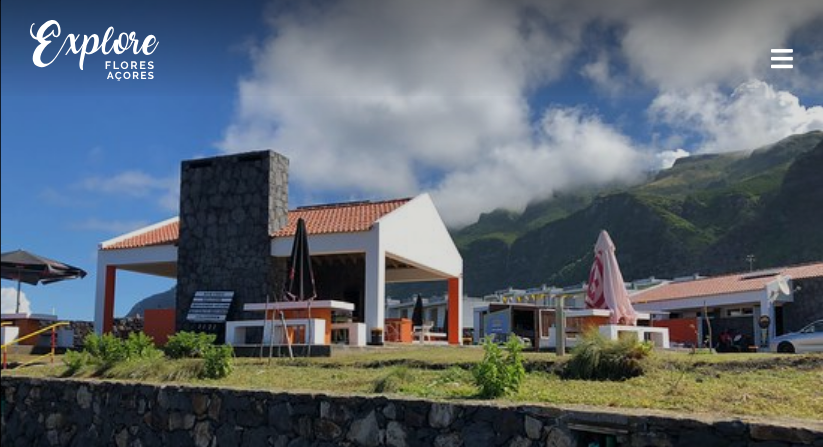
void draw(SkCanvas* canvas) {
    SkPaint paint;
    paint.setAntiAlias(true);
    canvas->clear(0xFF000000);
    canvas->drawImageRect(SkImages::DeferredFromEncodedData(SkData::MakeFromFileName("img1.png")), SkRect::MakeXYWH(0, 0, 823, 447), SkSamplingOptions());
    {
        const SkColor colors[] = {0x70000000, 0x00000000};
        const float stops[] = {0, 1};
        const SkPoint ends[] = {{412, 0}, {412, 101}};
        paint.setShader(SkGradientShader::MakeLinear(ends, colors, stops, 2, SkTileMode::kClamp));
        paint.setAlpha(255);
    }
    canvas->drawRect(SkRect::MakeXYWH(0, 0, 823, 96), paint);
    canvas->drawImageRect(SkImages::DeferredFromEncodedData(SkData::MakeFromFileName("img2.png")), SkRect::MakeXYWH(30, 20, 129, 61), SkSamplingOptions());
    canvas->drawImageRect(SkImages::DeferredFromEncodedData(SkData::MakeFromFileName("img3.png")), SkRect::MakeXYWH(771, 49, 22, 20), SkSamplingOptions());
}
